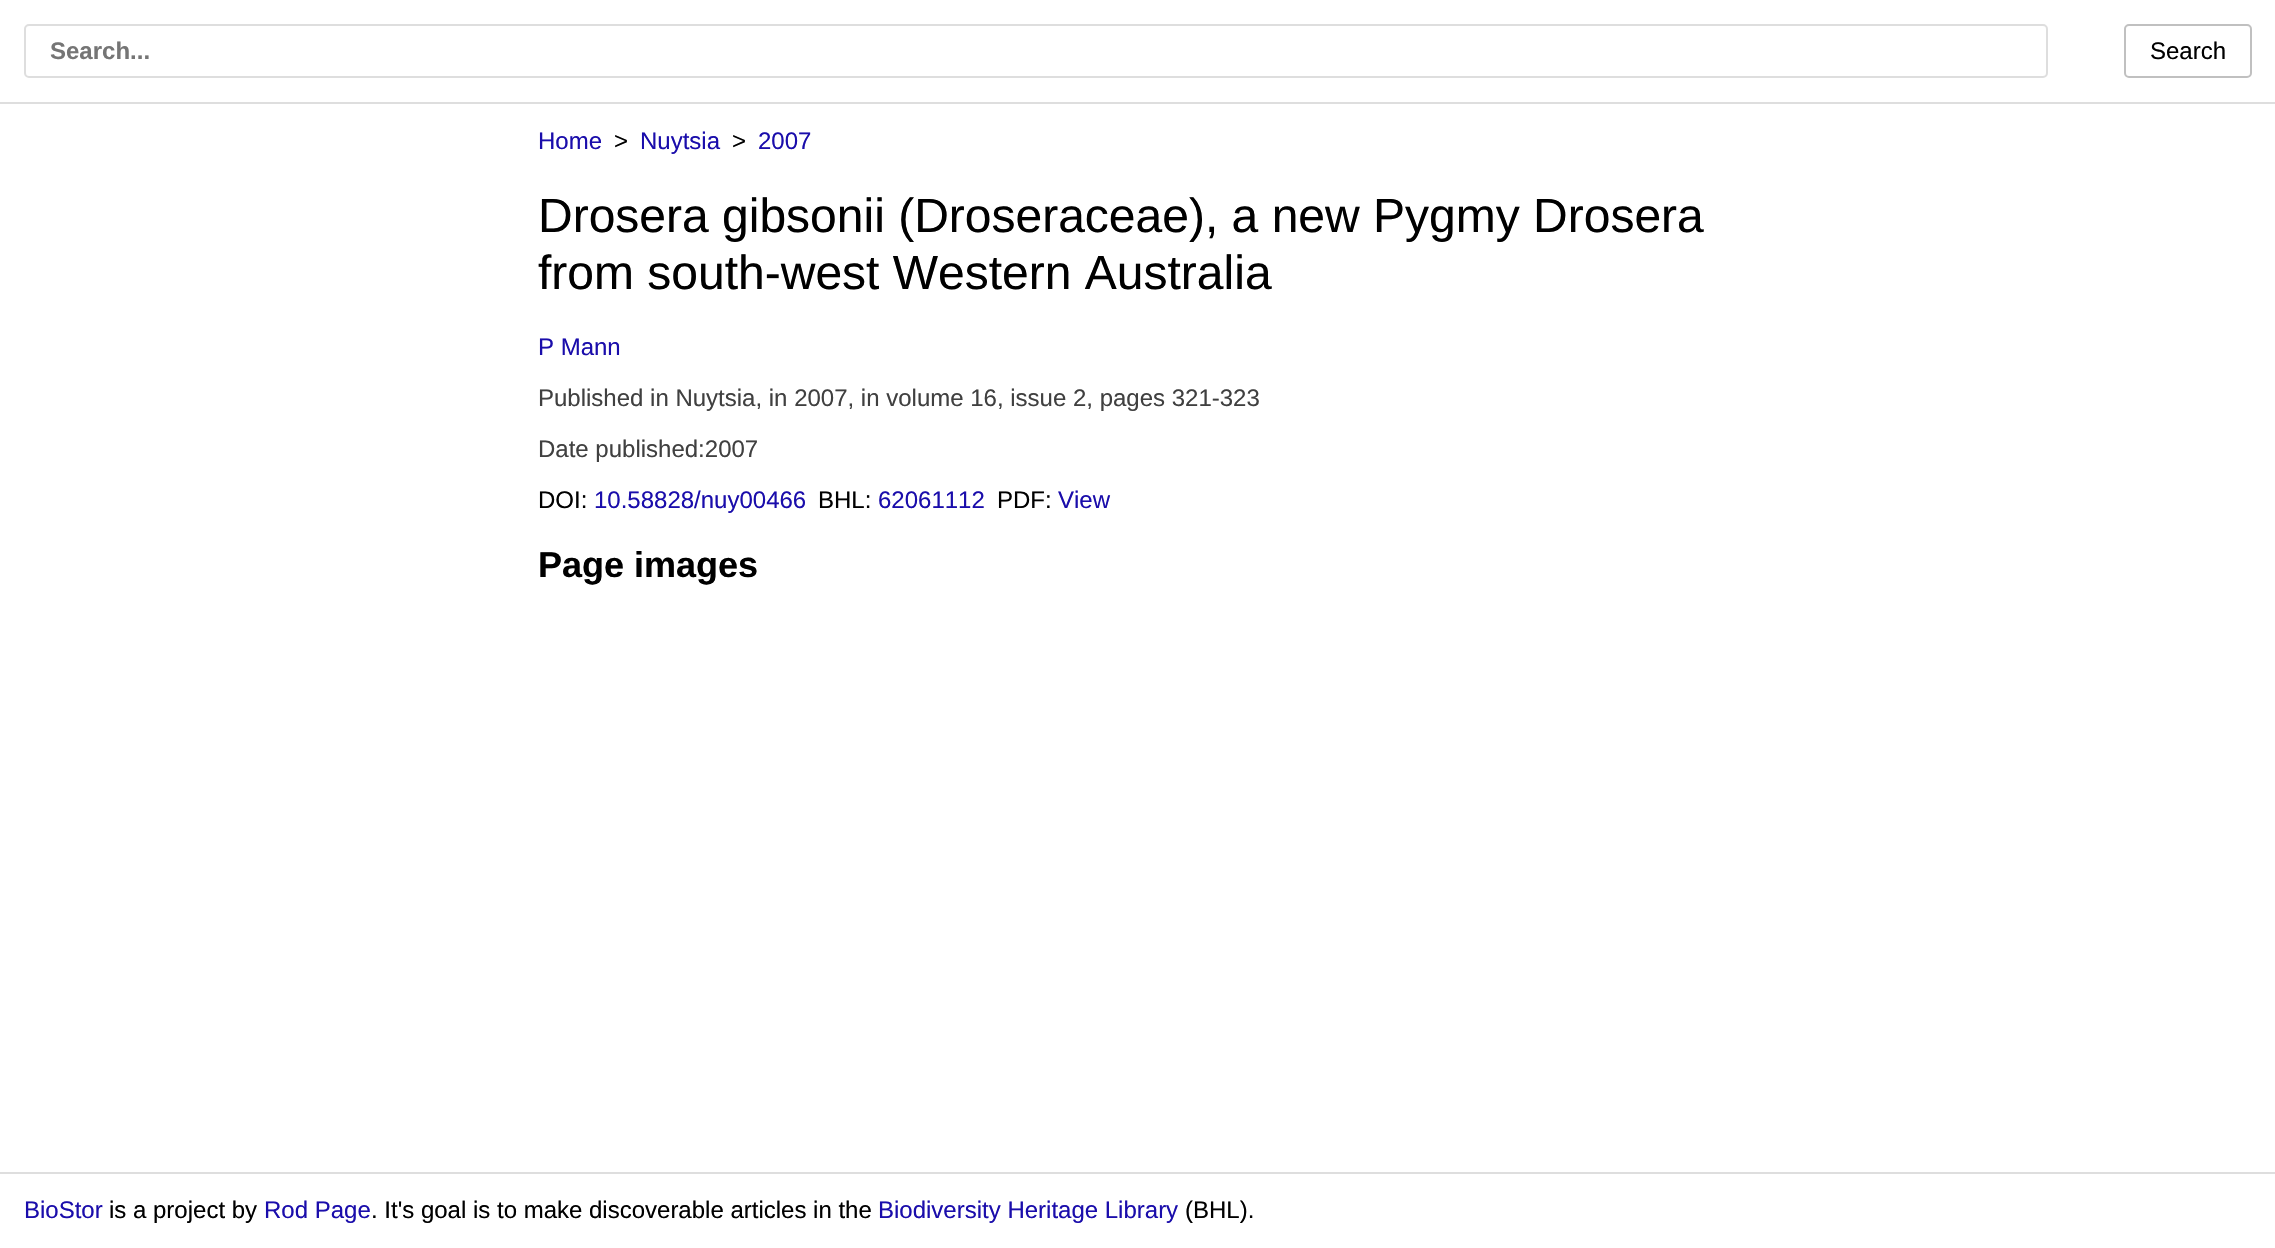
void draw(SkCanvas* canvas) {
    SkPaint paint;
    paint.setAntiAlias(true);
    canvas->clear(0xFFFFFFFF);
    paint.setColor(0xFFDEDEDE);
    canvas->drawRect(SkRect::MakeXYWH(0, 102, 2275, 2), paint);
    paint.setStyle(SkPaint::kStroke_Style);
    paint.setStrokeWidth(2);
    canvas->drawRoundRect(SkRect::MakeXYWH(25, 25, 2022, 52), 4, 4, paint);
    SkFont font1(fontMgr->matchFamilyStyle("Liberation Sans", SkFontStyle::Bold()), 24);
    font1.setSubpixel(true);
    paint.setStyle(SkPaint::kFill_Style);
    paint.setColor(0xFF757575);
    canvas->drawString("Search...", 50, 59, font1, paint);
    paint.setStyle(SkPaint::kStroke_Style);
    paint.setColor(0xFFC0C0C0);
    canvas->drawRoundRect(SkRect::MakeXYWH(2125, 25, 126, 52), 4, 4, paint);
    SkFont font2(fontMgr->matchFamilyStyle("Liberation Sans", SkFontStyle::Normal()), 24);
    font2.setSubpixel(true);
    paint.setStyle(SkPaint::kFill_Style);
    paint.setColor(0xFF000000);
    canvas->drawString("Search", 2150, 59, font2, paint);
    paint.setColor(0xFF1A0DAB);
    canvas->drawString("Home", 538, 149, font2, paint);
    paint.setColor(0xFF000000);
    canvas->drawString(">", 614, 149, font2, paint);
    paint.setColor(0xFF1A0DAB);
    canvas->drawString("Nuytsia", 640, 149, font2, paint);
    paint.setColor(0xFF000000);
    canvas->drawString(">", 732, 149, font2, paint);
    paint.setColor(0xFF1A0DAB);
    canvas->drawString("2007", 758, 149, font2, paint);
    SkFont font3(fontMgr->matchFamilyStyle("Liberation Sans", SkFontStyle::Normal()), 48);
    font3.setSubpixel(true);
    paint.setColor(0xFF000000);
    canvas->drawString("Drosera gibsonii (Droseraceae), a new Pygmy Drosera", 538, 232, font3, paint);
    canvas->drawString("from south-west Western Australia", 538, 289, font3, paint);
    paint.setColor(0xFF1A0DAB);
    canvas->drawString("P Mann", 538, 355, font2, paint);
    paint.setColor(0xFF404040);
    canvas->drawString("Published in Nuytsia, in 2007, in volume 16, issue 2, pages 321-323", 538, 406, font2, paint);
    canvas->drawString("Date published:2007", 538, 457, font2, paint);
    paint.setColor(0xFF000000);
    canvas->drawString("DOI:", 538, 508, font2, paint);
    paint.setColor(0xFF1A0DAB);
    canvas->drawString("10.58828/nuy00466", 594, 508, font2, paint);
    paint.setColor(0xFF000000);
    canvas->drawString("BHL:", 818, 508, font2, paint);
    paint.setColor(0xFF1A0DAB);
    canvas->drawString("62061112", 878, 508, font2, paint);
    paint.setColor(0xFF000000);
    canvas->drawString("PDF:", 997, 508, font2, paint);
    paint.setColor(0xFF1A0DAB);
    canvas->drawString("View", 1058, 508, font2, paint);
    SkFont font4(fontMgr->matchFamilyStyle("Liberation Sans", SkFontStyle::Bold()), 36);
    font4.setSubpixel(true);
    paint.setColor(0xFF000000);
    canvas->drawString("Page images", 538, 577, font4, paint);
    paint.setColor(0xFFDEDEDE);
    canvas->drawRect(SkRect::MakeXYWH(0, 1172, 2275, 2), paint);
    paint.setColor(0xFF1A0DAB);
    canvas->drawString("BioStor", 24, 1218, font2, paint);
    paint.setColor(0xFF000000);
    canvas->drawString("is a project by", 109, 1218, font2, paint);
    paint.setColor(0xFF1A0DAB);
    canvas->drawString("Rod Page", 264, 1218, font2, paint);
    paint.setColor(0xFF000000);
    canvas->drawString(". It's goal is to make discoverable articles in the", 371, 1218, font2, paint);
    paint.setColor(0xFF1A0DAB);
    canvas->drawString("Biodiversity Heritage Library", 878, 1218, font2, paint);
    paint.setColor(0xFF000000);
    canvas->drawString("(BHL).", 1185, 1218, font2, paint);
}
